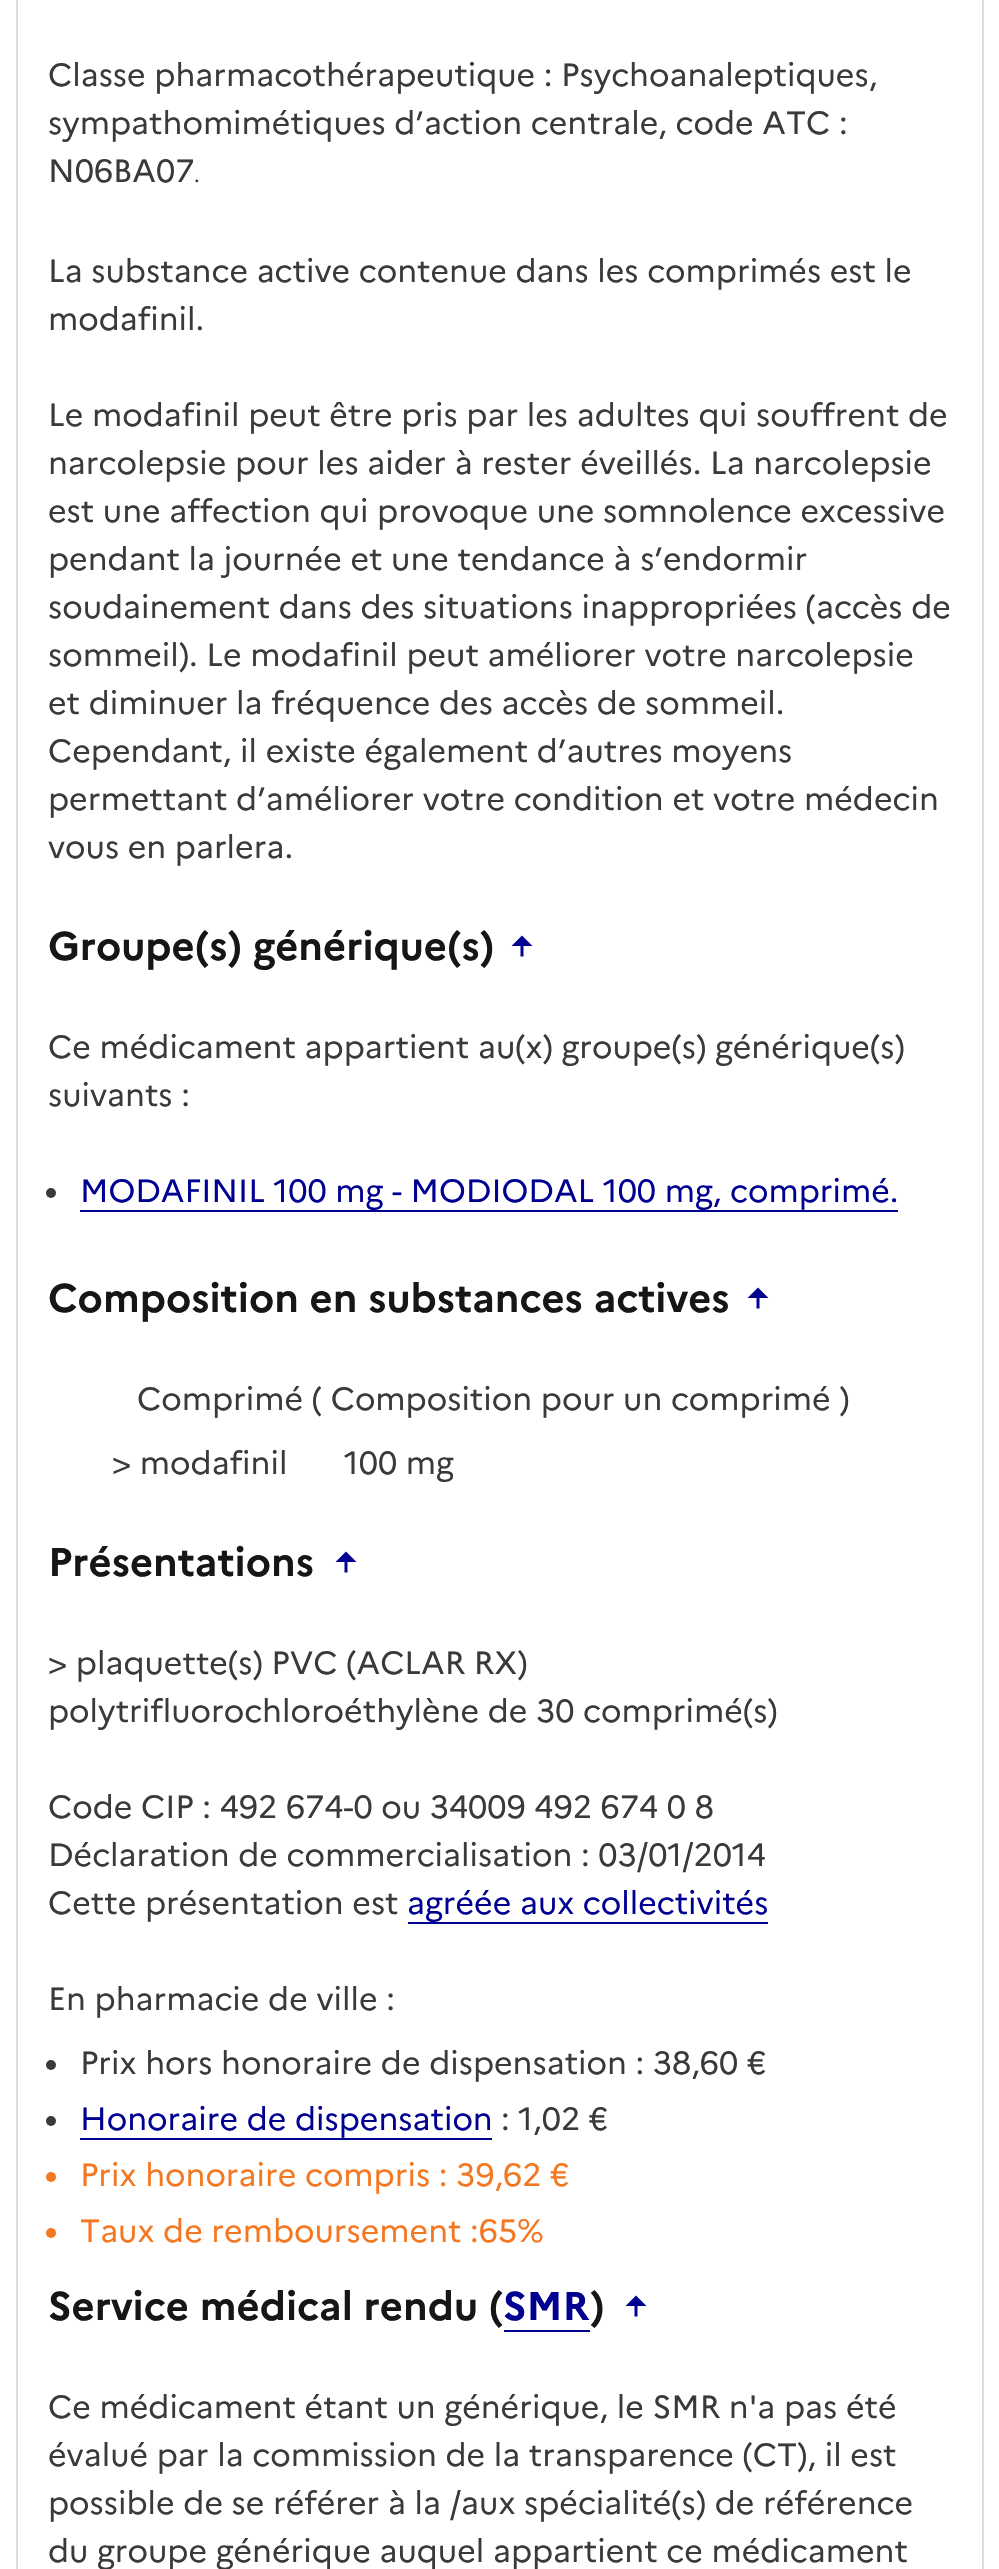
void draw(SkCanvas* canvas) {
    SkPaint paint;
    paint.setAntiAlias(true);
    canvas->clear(0xFFFFFFFF);
    paint.setColor(0xFFDDDDDD);
    canvas->drawRect(SkRect::MakeXYWH(982, 0, 2, 2569), paint);
    canvas->drawRect(SkRect::MakeXYWH(16, 0, 2, 2569), paint);
    SkFont font1(fontMgr->matchFamilyStyle("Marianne", SkFontStyle::Normal()), 32);
    font1.setSubpixel(true);
    paint.setColor(0xFF3A3A3A);
    canvas->drawString("Classe pharmacothérapeutique : Psychoanaleptiques,", 48, 86, font1, paint);
    canvas->drawString("sympathomimétiques d’action centrale, code ATC :", 48, 134, font1, paint);
    canvas->drawString("N06BA07", 48, 182, font1, paint);
    SkFont font2(fontMgr->matchFamilyStyle("Marianne", SkFontStyle::Normal()), 21);
    font2.setSubpixel(true);
    canvas->drawString(".", 194, 182, font2, paint);
    canvas->drawString("La substance active contenue dans les comprimés est le", 48, 282, font1, paint);
    canvas->drawString("modafinil.", 48, 330, font1, paint);
    canvas->drawString("Le modafinil peut être pris par les adultes qui souffrent de", 48, 426, font1, paint);
    canvas->drawString("narcolepsie pour les aider à rester éveillés. La narcolepsie", 48, 474, font1, paint);
    canvas->drawString("est une affection qui provoque une somnolence excessive", 48, 522, font1, paint);
    canvas->drawString("pendant la journée et une tendance à s’endormir", 48, 570, font1, paint);
    canvas->drawString("soudainement dans des situations inappropriées (accès de", 48, 618, font1, paint);
    canvas->drawString("sommeil). Le modafinil peut améliorer votre narcolepsie", 48, 666, font1, paint);
    canvas->drawString("et diminuer la fréquence des accès de sommeil.", 48, 714, font1, paint);
    canvas->drawString("Cependant, il existe également d’autres moyens", 48, 762, font1, paint);
    canvas->drawString("permettant d’améliorer votre condition et votre médecin", 48, 810, font1, paint);
    canvas->drawString("vous en parlera.", 48, 858, font1, paint);
    SkFont font3(fontMgr->matchFamilyStyle("Marianne", SkFontStyle::Bold()), 40);
    font3.setSubpixel(true);
    paint.setColor(0xFF161616);
    canvas->drawString("Groupe(s) générique(s)", 48, 960, font3, paint);
    paint.setColor(0xFF000091);
    canvas->drawPath(SkPathBuilder().moveTo(523.5f, 946).lineTo(523.5f, 956.5f).lineTo(520.5f, 956.5f).lineTo(520.5f, 946).lineTo(511.5f, 946).lineTo(522, 935.5f).lineTo(532.5f, 946).close().detach(), paint);
    paint.setColor(0xFF3A3A3A);
    canvas->drawString("Ce médicament appartient au(x) groupe(s) générique(s)", 48, 1058, font1, paint);
    canvas->drawString("suivants :", 48, 1106, font1, paint);
    canvas->drawCircle(51, 1193, 5, paint);
    paint.setColor(0xFF000091);
    canvas->drawString("MODAFINIL 100 mg - MODIODAL 100 mg, comprimé.", 80, 1202, font1, paint);
    canvas->drawRect(SkRect::MakeXYWH(80, 1210, 818, 2), paint);
    paint.setColor(0xFF161616);
    canvas->drawString("Composition en substances actives", 48, 1312, font3, paint);
    paint.setColor(0xFF000091);
    canvas->drawPath(SkPathBuilder().moveTo(759.5f, 1298).lineTo(759.5f, 1308.5f).lineTo(756.5f, 1308.5f).lineTo(756.5f, 1298).lineTo(747.5f, 1298).lineTo(758, 1287.5f).lineTo(768.5f, 1298).close().detach(), paint);
    paint.setColor(0xFF3A3A3A);
    canvas->drawString("Comprimé ( Composition pour un comprimé )", 137, 1410, font1, paint);
    canvas->drawString("> modafinil", 112, 1474, font1, paint);
    canvas->drawString("100 mg", 344, 1474, font1, paint);
    paint.setColor(0xFF161616);
    canvas->drawString("Présentations", 48, 1576, font3, paint);
    paint.setColor(0xFF000091);
    canvas->drawPath(SkPathBuilder().moveTo(347.5f, 1562).lineTo(347.5f, 1572.5f).lineTo(344.5f, 1572.5f).lineTo(344.5f, 1562).lineTo(335.5f, 1562).lineTo(346, 1551.5f).lineTo(356.5f, 1562).close().detach(), paint);
    paint.setColor(0xFF3A3A3A);
    canvas->drawString("> plaquette(s) PVC (ACLAR RX)", 48, 1674, font1, paint);
    canvas->drawString("polytrifluorochloroéthylène de 30 comprimé(s)", 48, 1722, font1, paint);
    canvas->drawString("Code CIP : 492 674-0 ou 34009 492 674 0 8", 48, 1818, font1, paint);
    canvas->drawString("Déclaration de commercialisation : 03/01/2014", 48, 1866, font1, paint);
    canvas->drawString("Cette présentation est", 48, 1914, font1, paint);
    paint.setColor(0xFF000091);
    canvas->drawString("agréée aux collectivités", 407, 1914, font1, paint);
    canvas->drawRect(SkRect::MakeXYWH(408, 1922, 360, 2), paint);
    paint.setColor(0xFF3A3A3A);
    canvas->drawString("En pharmacie de ville :", 48, 2010, font1, paint);
    canvas->drawCircle(51, 2065, 5, paint);
    canvas->drawString("Prix hors honoraire de dispensation : 38,60 €", 80, 2074, font1, paint);
    canvas->drawCircle(51, 2121, 5, paint);
    paint.setColor(0xFF000091);
    canvas->drawString("Honoraire de dispensation", 80, 2130, font1, paint);
    canvas->drawRect(SkRect::MakeXYWH(80, 2138, 412, 2), paint);
    paint.setColor(0xFF3A3A3A);
    canvas->drawString(": 1,02 €", 501, 2130, font1, paint);
    paint.setColor(0xFFF47721);
    canvas->drawCircle(51, 2177, 5, paint);
    canvas->drawString("Prix honoraire compris : 39,62 €", 80, 2186, font1, paint);
    canvas->drawCircle(51, 2233, 5, paint);
    canvas->drawString("Taux de remboursement :65%", 80, 2242, font1, paint);
    paint.setColor(0xFF161616);
    canvas->drawString("Service médical rendu (", 48, 2320, font3, paint);
    paint.setColor(0xFF000091);
    canvas->drawRect(SkRect::MakeXYWH(504, 2330, 86, 2), paint);
    canvas->drawString("SMR", 503, 2320, font3, paint);
    paint.setColor(0xFF161616);
    canvas->drawString(")", 590, 2320, font3, paint);
    paint.setColor(0xFF000091);
    canvas->drawPath(SkPathBuilder().moveTo(637.5f, 2306).lineTo(637.5f, 2316.5f).lineTo(634.5f, 2316.5f).lineTo(634.5f, 2306).lineTo(625.5f, 2306).lineTo(636, 2295.5f).lineTo(646.5f, 2306).close().detach(), paint);
    paint.setColor(0xFF3A3A3A);
    canvas->drawString("Ce médicament étant un générique, le SMR n'a pas été", 48, 2418, font1, paint);
    canvas->drawString("évalué par la commission de la transparence (CT), il est", 48, 2466, font1, paint);
    canvas->drawString("possible de se référer à la /aux spécialité(s) de référence", 48, 2514, font1, paint);
    canvas->drawString("du groupe générique auquel appartient ce médicament", 48, 2562, font1, paint);
}
